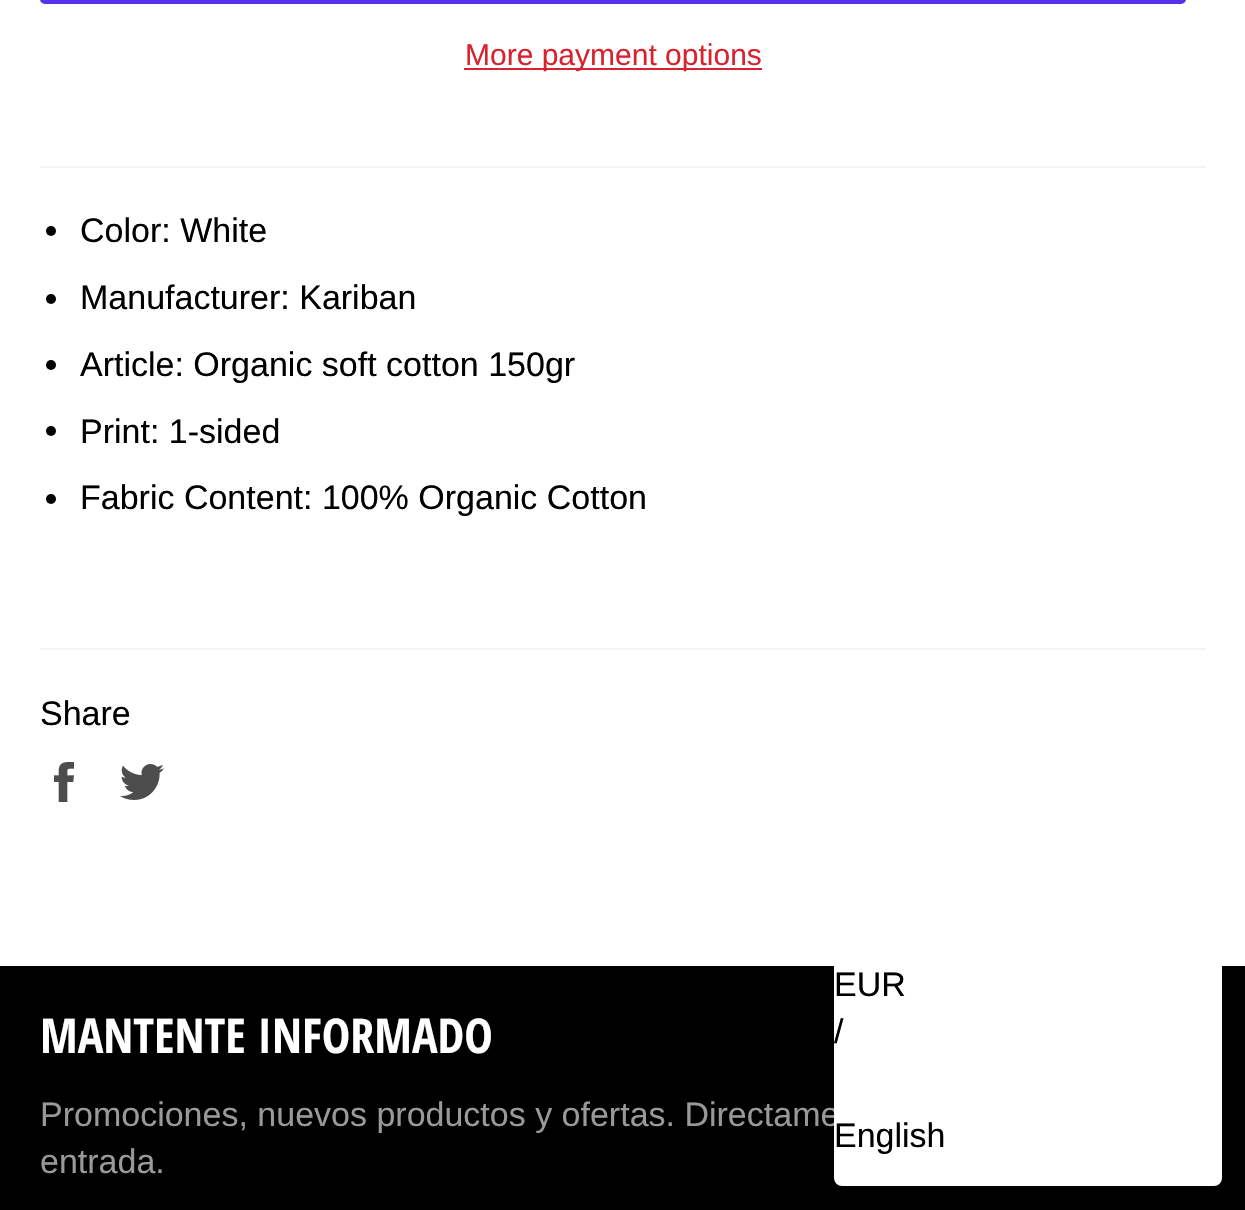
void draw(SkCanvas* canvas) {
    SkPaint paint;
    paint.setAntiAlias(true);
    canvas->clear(0xFFFFFFFF);
    paint.setColor(0xFF5433EB);
    canvas->drawRoundRect(SkRect::MakeXYWH(40, -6, 1146, 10), 6, 6, paint);
    paint.setColor(0xFFD8232F);
    canvas->drawRect(SkRect::MakeXYWH(464, 68, 298, 2), paint);
    SkFont font1(fontMgr->matchFamilyStyle("Liberation Sans", SkFontStyle::Normal()), 30);
    font1.setSubpixel(true);
    canvas->drawString("More payment options", 465, 65, font1, paint);
    paint.setColor(0xFFF4F4F4);
    canvas->drawRect(SkRect::MakeXYWH(40, 166, 1166, 2), paint);
    paint.setColor(0xFF000000);
    canvas->drawCircle(51, 231, 5, paint);
    SkFont font2(fontMgr->matchFamilyStyle("Liberation Sans", SkFontStyle::Normal()), 34);
    font2.setSubpixel(true);
    canvas->drawString("Color: White", 80, 242, font2, paint);
    canvas->drawCircle(51, 299, 5, paint);
    canvas->drawString("Manufacturer: Kariban", 80, 309, font2, paint);
    canvas->drawCircle(51, 365, 5, paint);
    canvas->drawString("Article: Organic soft cotton 150gr", 80, 376, font2, paint);
    canvas->drawCircle(51, 431, 5, paint);
    canvas->drawString("Print: 1-sided", 80, 443, font2, paint);
    canvas->drawCircle(51, 499, 5, paint);
    canvas->drawString("Fabric Content: 100% Organic Cotton", 80, 509, font2, paint);
    paint.setColor(0xFFF4F4F4);
    canvas->drawRect(SkRect::MakeXYWH(40, 648, 1166, 2), paint);
    paint.setColor(0xFF000000);
    canvas->drawString("Share", 40, 725, font2, paint);
    canvas->drawImageRect(SkImages::DeferredFromEncodedData(SkData::MakeFromFileName("img1.png")), SkRect::MakeXYWH(54, 762, 20, 40), SkSamplingOptions());
    canvas->drawImageRect(SkImages::DeferredFromEncodedData(SkData::MakeFromFileName("img2.png")), SkRect::MakeXYWH(120, 764, 44, 36), SkSamplingOptions());
    canvas->drawRect(SkRect::MakeXYWH(0, 966, 1245, 244), paint);
    SkFont font3(fontMgr->matchFamilyStyle("Open Sans Condensed", SkFontStyle::Bold()), 48);
    font3.setSubpixel(true);
    paint.setColor(0xFFFFFFFF);
    canvas->drawString("MANTENTE INFORMADO", 40, 1053, font3, paint);
    paint.setColor(0xFF999999);
    canvas->drawString("Promociones, nuevos productos y ofertas. Directame", 40, 1126, font2, paint);
    canvas->drawString("entrada.", 40, 1173, font2, paint);
    paint.setColor(0xFFFFFFFF);
    canvas->drawRoundRect(SkRect::MakeXYWH(834, 906, 388, 280), 8, 8, paint);
    paint.setColor(0xFF000000);
    canvas->drawString("EUR", 834, 996, font2, paint);
    canvas->drawString("/", 834, 1043, font2, paint);
    canvas->drawString("English", 834, 1147, font2, paint);
}
